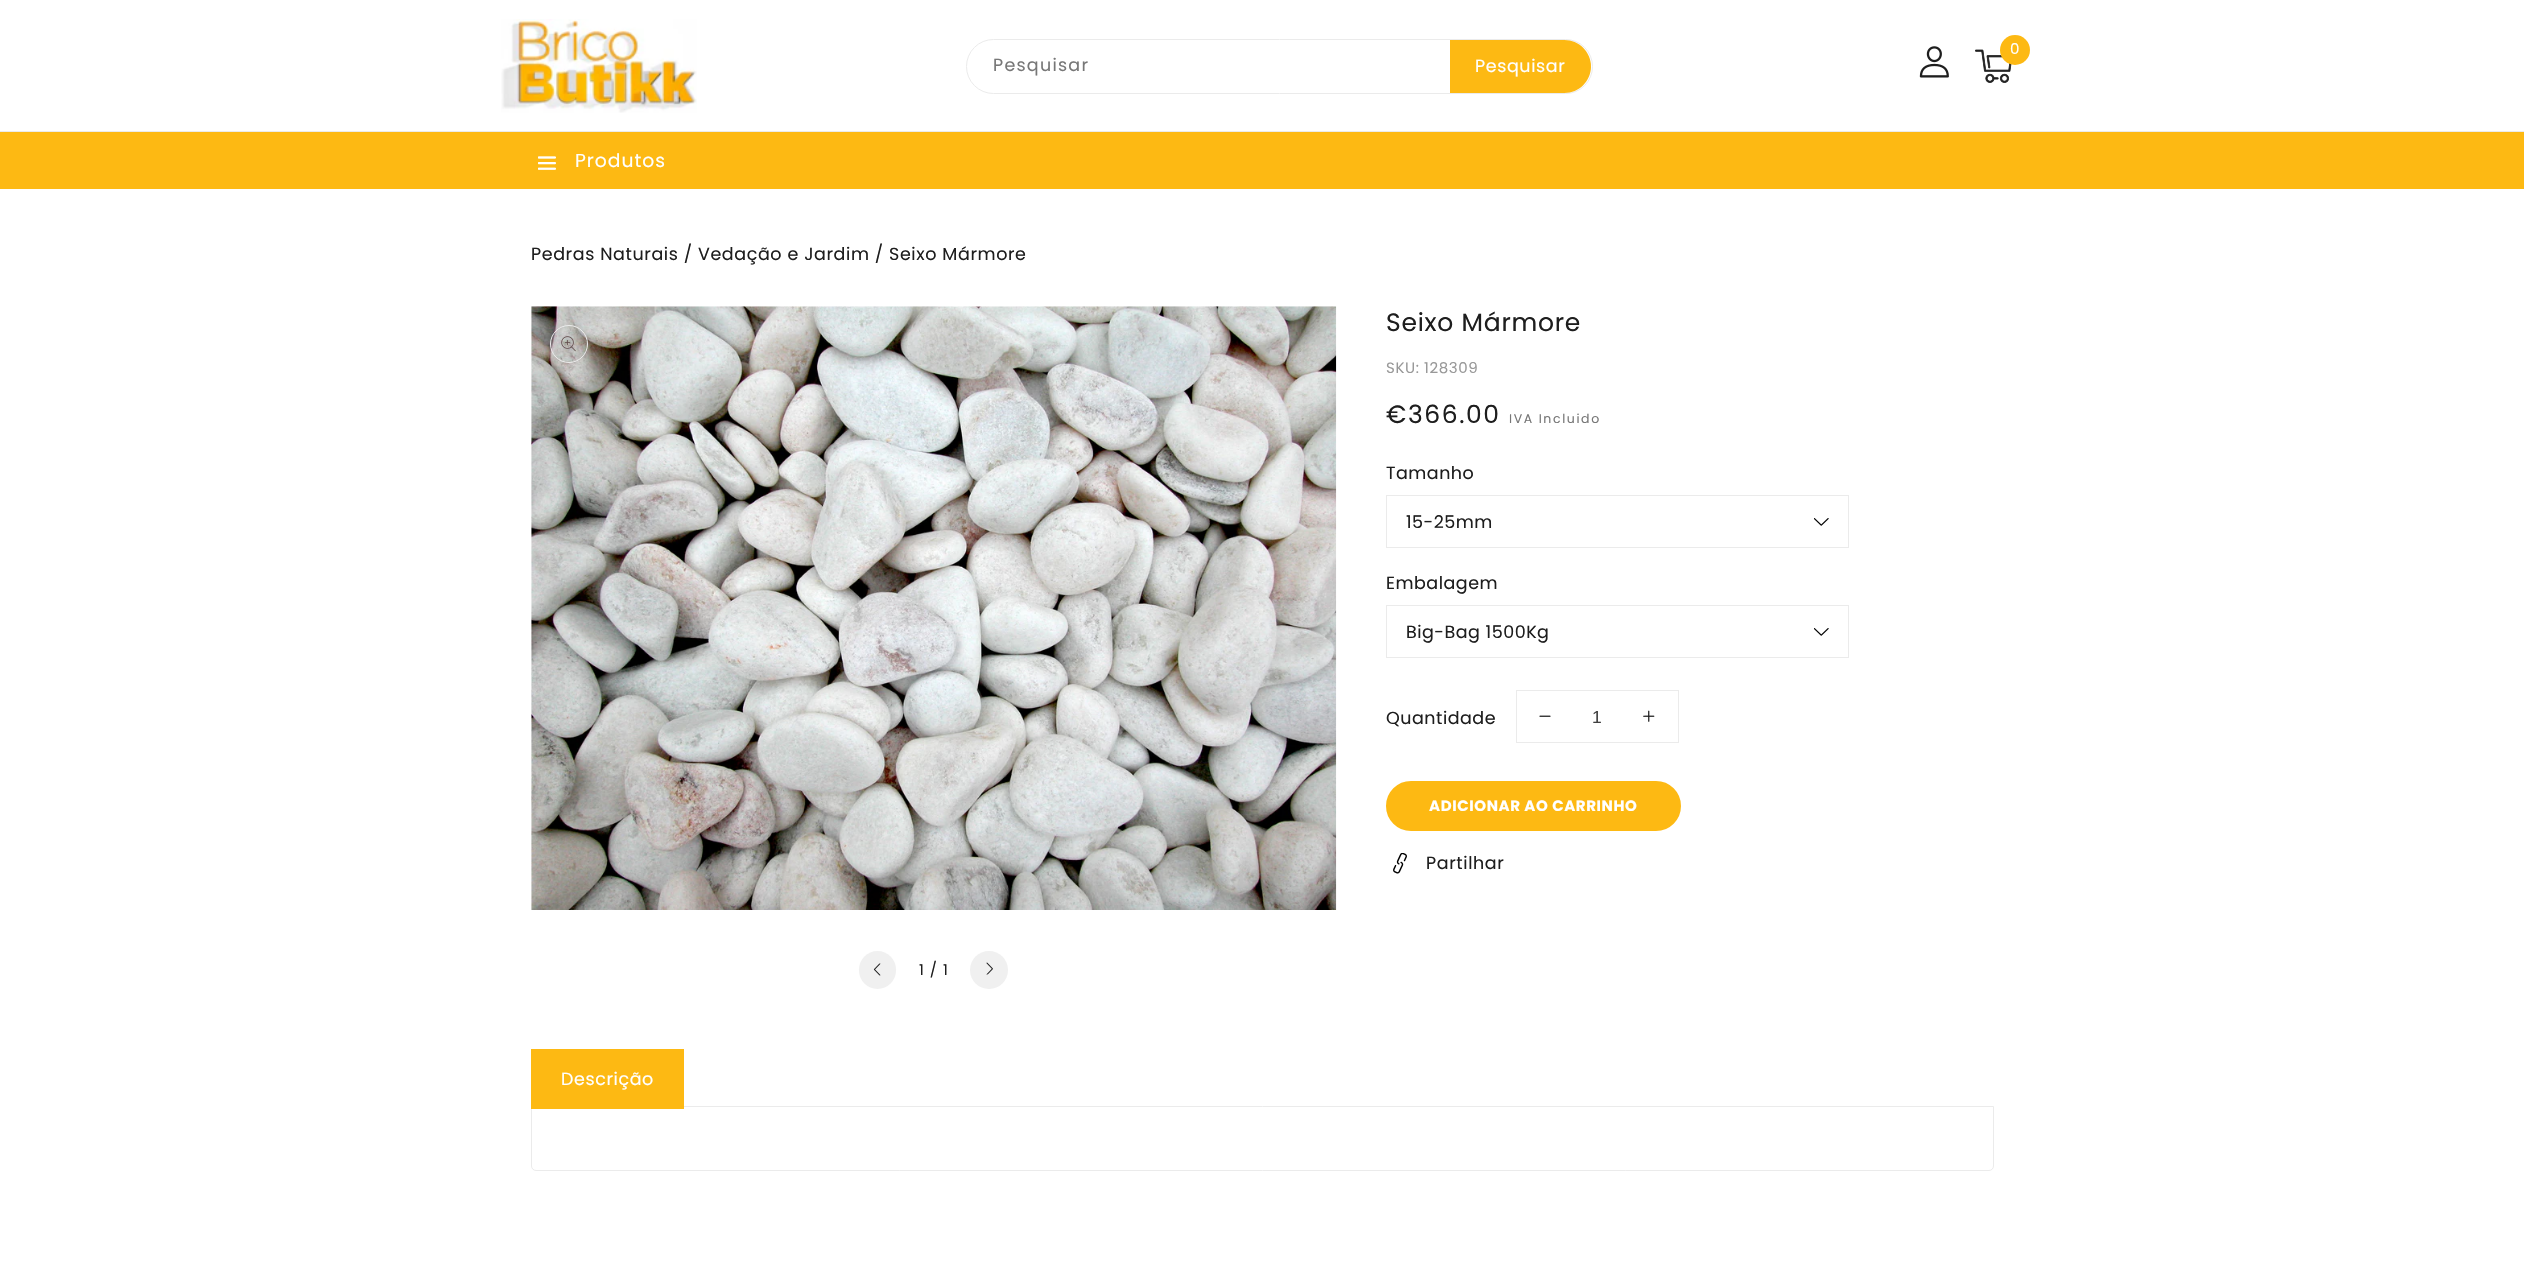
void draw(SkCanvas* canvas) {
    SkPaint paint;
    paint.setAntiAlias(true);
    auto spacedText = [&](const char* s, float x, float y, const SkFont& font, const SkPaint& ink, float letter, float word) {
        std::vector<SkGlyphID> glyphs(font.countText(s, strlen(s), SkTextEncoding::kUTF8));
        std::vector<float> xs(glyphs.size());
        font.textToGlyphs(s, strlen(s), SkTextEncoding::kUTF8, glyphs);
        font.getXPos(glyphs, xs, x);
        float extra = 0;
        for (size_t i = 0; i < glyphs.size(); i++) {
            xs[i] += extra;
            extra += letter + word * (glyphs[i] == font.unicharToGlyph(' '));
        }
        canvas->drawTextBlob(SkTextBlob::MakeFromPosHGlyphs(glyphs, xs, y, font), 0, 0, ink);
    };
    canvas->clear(0xFFFFFFFF);
    canvas->drawImageRect(SkImages::DeferredFromEncodedData(SkData::MakeFromFileName("img1.png")), SkRect::MakeXYWH(501, 19, 196, 94), SkSamplingOptions());
    canvas->drawImageRect(SkImages::DeferredFromEncodedData(SkData::MakeFromFileName("img2.png")), SkRect::MakeXYWH(1919, 46, 30, 32), SkSamplingOptions());
    canvas->drawImageRect(SkImages::DeferredFromEncodedData(SkData::MakeFromFileName("img3.png")), SkRect::MakeXYWH(1975, 49, 37, 34), SkSamplingOptions());
    paint.setColor(0xFFFDB913);
    canvas->drawCircle(2015, 50, 15, paint);
    SkFont font1(fontMgr->matchFamilyStyle("Poppins", SkFontStyle::Normal()), 15);
    font1.setSubpixel(true);
    paint.setColor(0xFFFFFFFF);
    spacedText("0", 2010, 54, font1, paint, 0.6f, 0);
    paint.setStyle(SkPaint::kStroke_Style);
    paint.setStrokeWidth(1);
    paint.setColor(0xFFEBEBEB);
    canvas->drawRoundRect(SkRect::MakeXYWH(966.5f, 39.5f, 626, 54), 27, 27, paint);
    SkFont font2(fontMgr->matchFamilyStyle("Poppins", SkFontStyle::Normal()), 17.5f);
    font2.setSubpixel(true);
    paint.setStyle(SkPaint::kFill_Style);
    paint.setColor(0xFF777777);
    spacedText("Pesquisar", 993, 71, font2, paint, 1.25f, 0);
    paint.setColor(0xFFFDB913);
    canvas->drawPath(SkPathBuilder().moveTo(1450, 40).lineTo(1564.5f, 40).cubicTo(1579, 40, 1591, 52, 1591, 66.5f).cubicTo(1591, 81, 1579, 93, 1564.5f, 93).lineTo(1450, 93).close().detach(), paint);
    paint.setColor(0xFFFFFFFF);
    spacedText("Pesquisar", 1475, 72, font2, paint, 0.6f, 0);
    paint.setColor(0xFFFDB913);
    canvas->drawRect(SkRect::MakeXYWH(0, 132, 2524, 57), paint);
    paint.setColor(0xFFEBEBEB);
    canvas->drawRect(SkRect::MakeXYWH(0, 131, 2524, 1), paint);
    canvas->drawImageRect(SkImages::DeferredFromEncodedData(SkData::MakeFromFileName("img4.png")), SkRect::MakeXYWH(538, 156, 18, 14), SkSamplingOptions());
    SkFont font3(fontMgr->matchFamilyStyle("Poppins", SkFontStyle::Normal()), 18.75f);
    font3.setSubpixel(true);
    paint.setColor(0xFFFFFFFF);
    spacedText("Produtos", 575, 167, font3, paint, 1, 0);
    paint.setColor(0xFF1E1E1E);
    spacedText("Pedras Naturais / Vedação e Jardim / Seixo Mármore", 531, 260, font2, paint, 0.6f, 0);
    SkFont font4(fontMgr->matchFamilyStyle("Poppins", SkFontStyle::Normal()), 25);
    font4.setSubpixel(true);
    spacedText("Seixo Mármore", 1386, 331, font4, paint, 0.75f, 0);
    paint.setColor(0xFF999999);
    spacedText("SKU: 128309", 1386, 373, font1, paint, 0.6f, 0);
    paint.setColor(0xFF1E1E1E);
    spacedText("€366.00", 1386, 423, font4, paint, 1.6f, 0);
    SkFont font5(fontMgr->matchFamilyStyle("Poppins", SkFontStyle::Normal()), 12.5f);
    font5.setSubpixel(true);
    paint.setColor(0xFF777777);
    spacedText("IVA Incluido", 1509, 423, font5, paint, 1.6f, 0);
    paint.setColor(0xFF1E1E1E);
    spacedText("Tamanho", 1386, 479, font2, paint, 0.5f, 0);
    paint.setStyle(SkPaint::kStroke_Style);
    paint.setColor(0xFFEBEBEB);
    canvas->drawRect(SkRect::MakeXYWH(1386.5f, 495.5f, 462, 52), paint);
    paint.setStyle(SkPaint::kFill_Style);
    paint.setColor(0xFF1E1E1E);
    spacedText("15-25mm", 1406, 528, font2, paint, 0.5f, 0);
    canvas->drawImageRect(SkImages::DeferredFromEncodedData(SkData::MakeFromFileName("img5.png")), SkRect::MakeXYWH(1814, 518, 15, 8), SkSamplingOptions());
    spacedText("Embalagem", 1386, 589, font2, paint, 0.5f, 0);
    paint.setStyle(SkPaint::kStroke_Style);
    paint.setColor(0xFFEBEBEB);
    canvas->drawRect(SkRect::MakeXYWH(1386.5f, 605.5f, 462, 52), paint);
    paint.setStyle(SkPaint::kFill_Style);
    paint.setColor(0xFF1E1E1E);
    spacedText("Big-Bag 1500Kg", 1406, 638, font2, paint, 0.5f, 0);
    canvas->drawImageRect(SkImages::DeferredFromEncodedData(SkData::MakeFromFileName("img5.png")), SkRect::MakeXYWH(1814, 628, 15, 8), SkSamplingOptions());
    spacedText("Quantidade", 1386, 724, font2, paint, 0.5f, 0);
    paint.setStyle(SkPaint::kStroke_Style);
    paint.setColor(0xFFEBEBEB);
    canvas->drawRect(SkRect::MakeXYWH(1516.5f, 690.5f, 162, 52), paint);
    canvas->drawImageRect(SkImages::DeferredFromEncodedData(SkData::MakeFromFileName("img6.png")), SkRect::MakeXYWH(1539, 715, 12, 2), SkSamplingOptions());
    SkFont font6(fontMgr->matchFamilyStyle("Liberation Sans", SkFontStyle::Normal()), 17.5f);
    font6.setSubpixel(true);
    paint.setStyle(SkPaint::kFill_Style);
    paint.setColor(0xFF404040);
    canvas->drawString("1", 1592, 723, font6, paint);
    canvas->drawImageRect(SkImages::DeferredFromEncodedData(SkData::MakeFromFileName("img7.png")), SkRect::MakeXYWH(1643, 710, 12, 12), SkSamplingOptions());
    paint.setColor(0xFFFDB913);
    canvas->drawRoundRect(SkRect::MakeXYWH(1387.5f, 782.5f, 292, 47), 23.5f, 23.5f, paint);
    paint.setStyle(SkPaint::kStroke_Style);
    paint.setStrokeWidth(3);
    canvas->drawRoundRect(SkRect::MakeXYWH(1387.5f, 782.5f, 292, 47), 23.5f, 23.5f, paint);
    SkFont font7(fontMgr->matchFamilyStyle("Poppins", SkFontStyle::Bold()), 15);
    font7.setSubpixel(true);
    paint.setStyle(SkPaint::kFill_Style);
    paint.setColor(0xFFFFFFFF);
    spacedText("ADICIONAR AO CARRINHO", 1429, 811, font7, paint, 0.6f, 0);
    canvas->drawImageRect(SkImages::DeferredFromEncodedData(SkData::MakeFromFileName("img8.png")), SkRect::MakeXYWH(1393, 853, 14, 21), SkSamplingOptions());
    paint.setColor(0xFF1E1E1E);
    spacedText("Partilhar", 1426, 869, font2, paint, 0.6f, 0);
    canvas->drawImageRect(SkImages::DeferredFromEncodedData(SkData::MakeFromFileName("img9.png")), SkRect::MakeXYWH(531, 306, 806, 604), SkSamplingOptions());
    paint.setStyle(SkPaint::kStroke_Style);
    paint.setStrokeWidth(1);
    paint.setColor(0xFFEBEBEB);
    canvas->drawCircle(569, 344, 18.5f, paint);
    canvas->drawImageRect(SkImages::DeferredFromEncodedData(SkData::MakeFromFileName("img10.png")), SkRect::MakeXYWH(561, 336, 15, 16), SkSamplingOptions());
    paint.setStyle(SkPaint::kFill_Style);
    paint.setColor(0xFFF0F0F0);
    canvas->drawRoundRect(SkRect::MakeXYWH(859, 951, 37, 38), 18.5f, 18.5f, paint);
    canvas->drawImageRect(SkImages::DeferredFromEncodedData(SkData::MakeFromFileName("img11.png")), SkRect::MakeXYWH(873, 963, 8, 13), SkSamplingOptions());
    paint.setColor(0xFF1E1E1E);
    spacedText("1 / 1", 919, 975, font1, paint, 1, 0);
    paint.setColor(0xFFF0F0F0);
    canvas->drawCircle(989, 970, 19, paint);
    canvas->drawImageRect(SkImages::DeferredFromEncodedData(SkData::MakeFromFileName("img12.png")), SkRect::MakeXYWH(986, 962, 7, 13), SkSamplingOptions());
    paint.setStyle(SkPaint::kStroke_Style);
    paint.setColor(0xFFEBEBEB);
    canvas->drawPath(SkPathBuilder().moveTo(531.5f, 1106.5f).lineTo(1993.5f, 1106.5f).lineTo(1993.5f, 1166).cubicTo(1993.5f, 1168.5f, 1991.5f, 1170.5f, 1989, 1170.5f).lineTo(536, 1170.5f).cubicTo(533.5f, 1170.5f, 531.5f, 1168.5f, 531.5f, 1166).close().detach(), paint);
    paint.setStyle(SkPaint::kFill_Style);
    paint.setColor(0xFFFDB913);
    canvas->drawRect(SkRect::MakeXYWH(531, 1049, 153, 60), paint);
    paint.setColor(0xFFFFFFFF);
    spacedText("Descrição", 561, 1085, font2, paint, 0.6f, 0);
}
